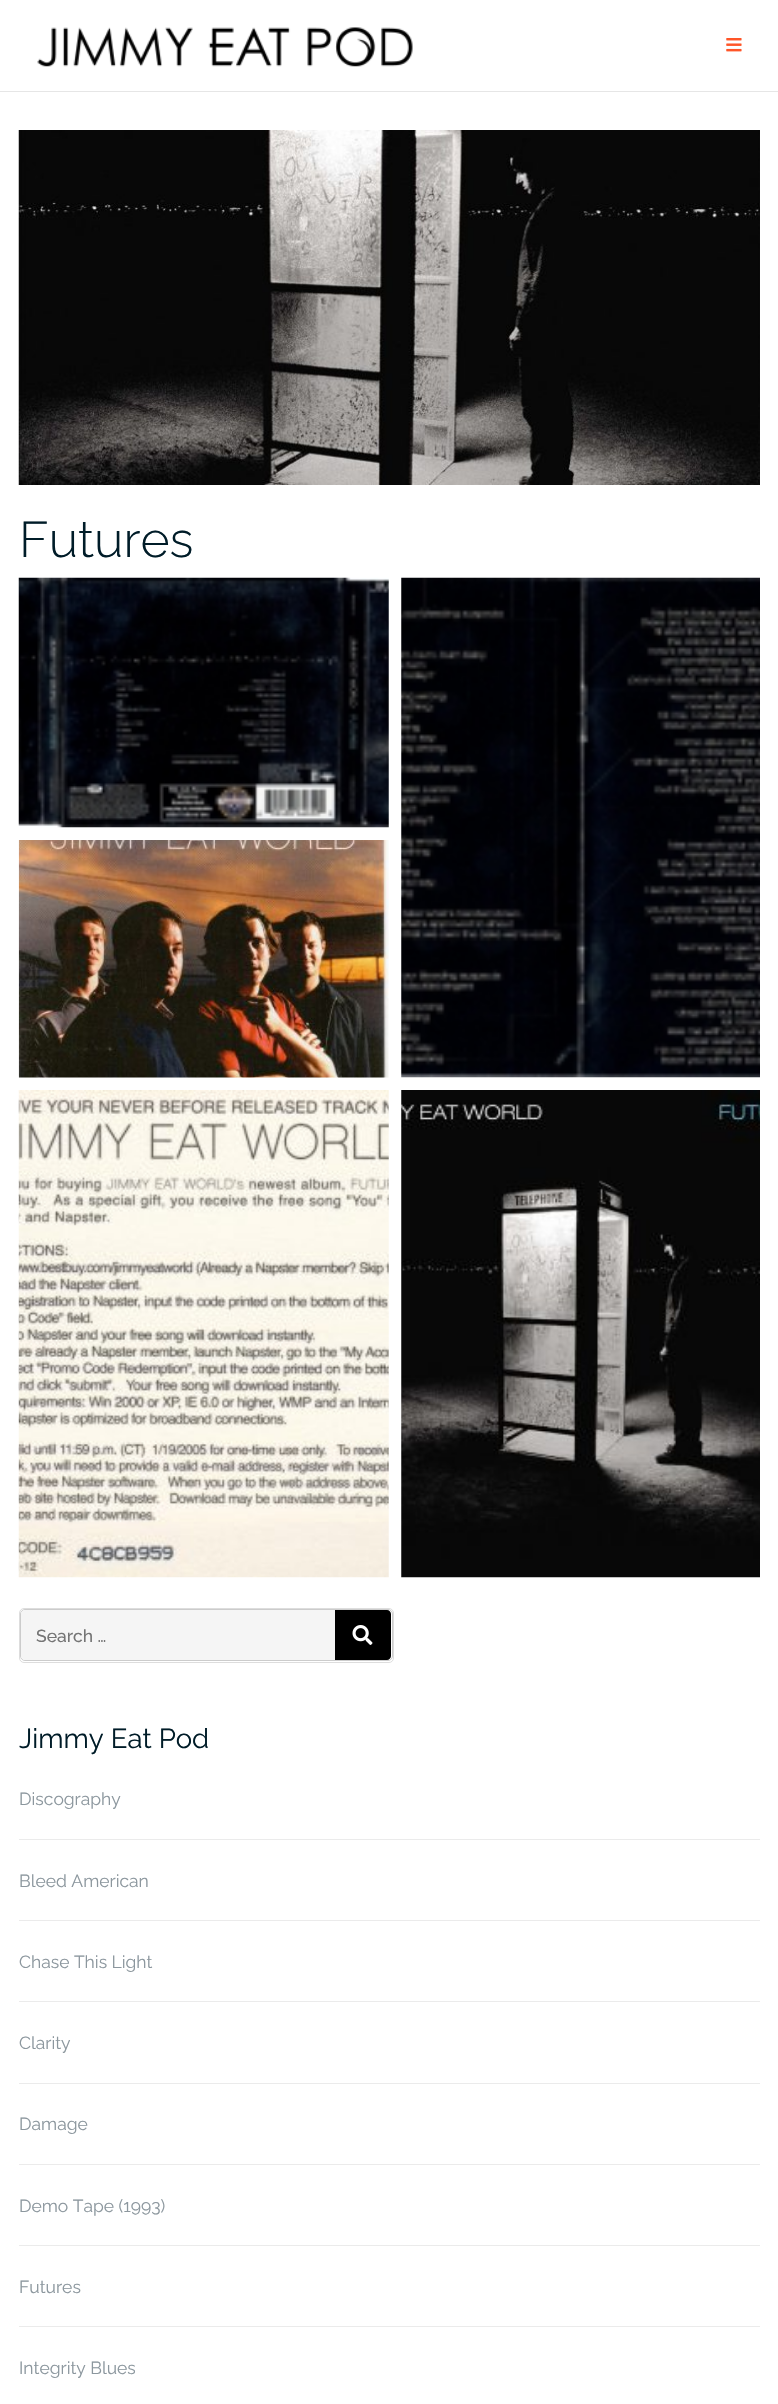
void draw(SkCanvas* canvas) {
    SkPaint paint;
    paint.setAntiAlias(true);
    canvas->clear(0xFFFFFFFF);
    paint.setColor(0xFFE6E6E6);
    canvas->drawRect(SkRect::MakeXYWH(0, 91, 778, 1), paint);
    canvas->drawImageRect(SkImages::DeferredFromEncodedData(SkData::MakeFromFileName("img1.png")), SkRect::MakeXYWH(37, 27, 376, 40), SkSamplingOptions());
    canvas->drawImageRect(SkImages::DeferredFromEncodedData(SkData::MakeFromFileName("img2.png")), SkRect::MakeXYWH(726, 38, 16, 14), SkSamplingOptions());
    canvas->drawImageRect(SkImages::DeferredFromEncodedData(SkData::MakeFromFileName("img3.png")), SkRect::MakeXYWH(18, 130, 742, 355), SkSamplingOptions());
    SkFont font1(fontMgr->matchFamilyStyle("Raleway", SkFontStyle(300, SkFontStyle::kNormal_Width, SkFontStyle::kUpright_Slant)), 50);
    font1.setSubpixel(true);
    paint.setColor(0xFF001C28);
    canvas->drawString("Futures", 19, 557, font1, paint);
    canvas->drawImageRect(SkImages::DeferredFromEncodedData(SkData::MakeFromFileName("img4.png")), SkRect::MakeXYWH(18, 577, 371, 251), SkSamplingOptions());
    canvas->drawImageRect(SkImages::DeferredFromEncodedData(SkData::MakeFromFileName("img5.png")), SkRect::MakeXYWH(401, 577, 359, 501), SkSamplingOptions());
    canvas->drawImageRect(SkImages::DeferredFromEncodedData(SkData::MakeFromFileName("img6.png")), SkRect::MakeXYWH(18, 840, 371, 238), SkSamplingOptions());
    canvas->drawImageRect(SkImages::DeferredFromEncodedData(SkData::MakeFromFileName("img7.png")), SkRect::MakeXYWH(18, 1090, 371, 488), SkSamplingOptions());
    canvas->drawImageRect(SkImages::DeferredFromEncodedData(SkData::MakeFromFileName("img8.png")), SkRect::MakeXYWH(401, 1090, 359, 488), SkSamplingOptions());
    paint.setStyle(SkPaint::kStroke_Style);
    paint.setStrokeWidth(1);
    paint.setColor(0xFFDDDDDD);
    canvas->drawRoundRect(SkRect::MakeXYWH(19.5f, 1608.5f, 374, 54), 4.5f, 4.5f, paint);
    paint.setColor(0xFFCCCCCC);
    canvas->drawRoundRect(SkRect::MakeXYWH(20.5f, 1609.5f, 372, 51), 4.5f, 4.5f, paint);
    paint.setStyle(SkPaint::kFill_Style);
    paint.setColor(0xFFF5F5F5);
    canvas->drawPath(SkPathBuilder().moveTo(25, 1610).lineTo(335, 1610).lineTo(335, 1660).lineTo(25, 1660).cubicTo(23, 1660, 21, 1658, 21, 1656).lineTo(21, 1614).cubicTo(21, 1612, 23, 1610, 25, 1610).close().detach(), paint);
    SkFont font2(fontMgr->matchFamilyStyle("Raleway", SkFontStyle(500, SkFontStyle::kNormal_Width, SkFontStyle::kUpright_Slant)), 17.5f);
    font2.setSubpixel(true);
    paint.setColor(0xFF757575);
    canvas->drawString("Search …", 36, 1642, font2, paint);
    paint.setColor(0xFF000000);
    canvas->drawPath(SkPathBuilder().moveTo(335, 1610).lineTo(335, 1660).lineTo(387, 1660).cubicTo(389, 1660, 391, 1658, 391, 1656).lineTo(391, 1614).cubicTo(391, 1612, 389, 1610, 387, 1610).close().detach(), paint);
    canvas->drawImageRect(SkImages::DeferredFromEncodedData(SkData::MakeFromFileName("img9.png")), SkRect::MakeXYWH(352, 1625, 21, 20), SkSamplingOptions());
    SkFont font3(fontMgr->matchFamilyStyle("Raleway", SkFontStyle::Normal()), 27.5f);
    font3.setSubpixel(true);
    paint.setColor(0xFF001C28);
    canvas->drawString("Jimmy Eat Pod", 19, 1748, font3, paint);
    SkFont font4(fontMgr->matchFamilyStyle("Raleway", SkFontStyle::Normal()), 17.5f);
    font4.setSubpixel(true);
    paint.setColor(0xFF8C979E);
    canvas->drawString("Discography", 19, 1805, font4, paint);
    paint.setColor(0xFFEBEBEB);
    canvas->drawRect(SkRect::MakeXYWH(19, 1839, 741, 1), paint);
    canvas->drawRect(SkRect::MakeXYWH(19, 1920, 741, 1), paint);
    paint.setColor(0xFF8C979E);
    canvas->drawString("Bleed American", 19, 1887, font4, paint);
    paint.setColor(0xFFEBEBEB);
    canvas->drawRect(SkRect::MakeXYWH(19, 2001, 741, 1), paint);
    paint.setColor(0xFF8C979E);
    canvas->drawString("Chase This Light", 19, 1968, font4, paint);
    paint.setColor(0xFFEBEBEB);
    canvas->drawRect(SkRect::MakeXYWH(19, 2083, 741, 1), paint);
    paint.setColor(0xFF8C979E);
    canvas->drawString("Clarity", 19, 2049, font4, paint);
    paint.setColor(0xFFEBEBEB);
    canvas->drawRect(SkRect::MakeXYWH(19, 2164, 741, 1), paint);
    paint.setColor(0xFF8C979E);
    canvas->drawString("Damage", 19, 2130, font4, paint);
    paint.setColor(0xFFEBEBEB);
    canvas->drawRect(SkRect::MakeXYWH(19, 2245, 741, 1), paint);
    paint.setColor(0xFF8C979E);
    canvas->drawString("Demo Tape (1993)", 19, 2212, font4, paint);
    paint.setColor(0xFFEBEBEB);
    canvas->drawRect(SkRect::MakeXYWH(19, 2326, 741, 1), paint);
    paint.setColor(0xFF8C979E);
    canvas->drawString("Futures", 19, 2293, font4, paint);
    canvas->drawString("Integrity Blues", 19, 2374, font4, paint);
}
